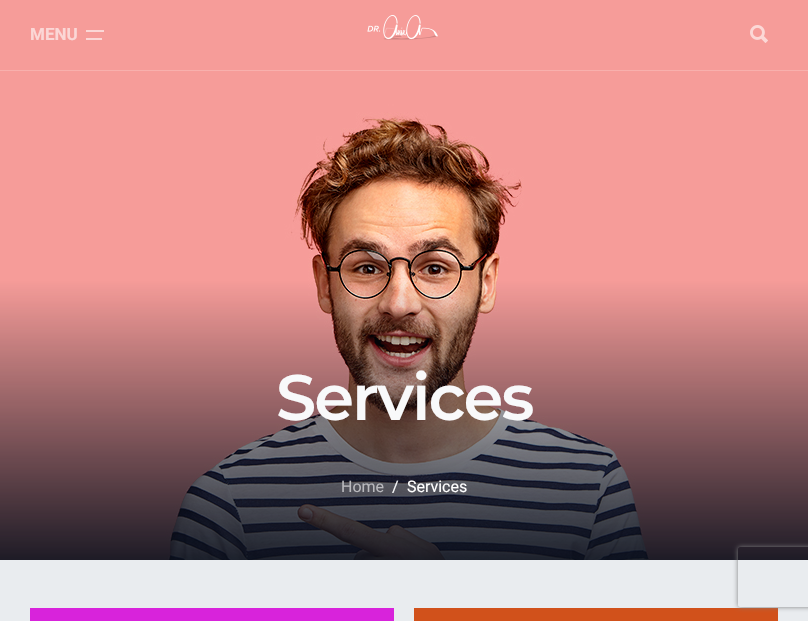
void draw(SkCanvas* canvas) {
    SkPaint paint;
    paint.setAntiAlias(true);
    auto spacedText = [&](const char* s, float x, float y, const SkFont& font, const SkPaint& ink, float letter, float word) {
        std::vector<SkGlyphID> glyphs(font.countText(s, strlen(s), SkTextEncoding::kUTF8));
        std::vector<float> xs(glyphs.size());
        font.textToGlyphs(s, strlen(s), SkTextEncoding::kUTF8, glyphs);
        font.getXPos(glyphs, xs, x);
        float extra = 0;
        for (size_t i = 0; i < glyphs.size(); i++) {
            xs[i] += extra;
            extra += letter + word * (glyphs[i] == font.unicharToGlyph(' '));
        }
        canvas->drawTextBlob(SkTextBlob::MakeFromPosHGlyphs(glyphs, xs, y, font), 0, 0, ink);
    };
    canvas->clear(0xFFE9ECEF);
    canvas->drawImageRect(SkImages::DeferredFromEncodedData(SkData::MakeFromFileName("img3.png")), SkRect::MakeXYWH(0, 0, 808, 560), SkSamplingOptions());
    paint.setColor(0xFFF8B0AD);
    canvas->drawRect(SkRect::MakeXYWH(0, 70, 808, 1), paint);
    SkFont font1(fontMgr->matchFamilyStyle("Roboto", SkFontStyle::Bold()), 17);
    font1.setSubpixel(true);
    paint.setColor(0xFFFBD7D6);
    canvas->drawString("MENU", 30, 40, font1, paint);
    canvas->drawRect(SkRect::MakeXYWH(86, 30, 18, 2), paint);
    canvas->drawRect(SkRect::MakeXYWH(86, 38, 16, 2), paint);
    canvas->drawImageRect(SkImages::DeferredFromEncodedData(SkData::MakeFromFileName("img1.png")), SkRect::MakeXYWH(367, 15, 71, 25), SkSamplingOptions());
    canvas->drawImageRect(SkImages::DeferredFromEncodedData(SkData::MakeFromFileName("img2.png")), SkRect::MakeXYWH(750, 25, 18, 18), SkSamplingOptions());
    SkFont font2(fontMgr->matchFamilyStyle("Montserrat", SkFontStyle(600, SkFontStyle::kNormal_Width, SkFontStyle::kUpright_Slant)), 64);
    font2.setSubpixel(true);
    paint.setColor(0xFFF8F9FA);
    spacedText("Services", 276, 420, font2, paint, -2, 0);
    SkFont font3(fontMgr->matchFamilyStyle("Roboto", SkFontStyle::Normal()), 16);
    font3.setSubpixel(true);
    paint.setColor(0xFFB9B9BD);
    canvas->drawString("Home", 341, 492, font3, paint);
    paint.setColor(0xFFF8F9FA);
    canvas->drawString("/", 392, 492, font3, paint);
    paint.setColor(0xFFFFFFFF);
    canvas->drawString("Services", 407, 492, font3, paint);
    paint.setColor(0xFFD823DB);
    canvas->drawRect(SkRect::MakeXYWH(30, 608, 364, 13), paint);
    paint.setColor(0xFFD1511B);
    canvas->drawRect(SkRect::MakeXYWH(414, 608, 364, 13), paint);
    canvas->save();
    canvas->clipPath(SkPathBuilder(SkPathFillType::kEvenOdd).moveTo(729, 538).lineTo(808, 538).lineTo(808, 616).lineTo(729, 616).close().moveTo(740, 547).lineTo(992, 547).cubicTo(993, 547, 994, 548, 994, 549).lineTo(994, 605).cubicTo(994, 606, 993, 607, 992, 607).lineTo(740, 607).cubicTo(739, 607, 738, 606, 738, 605).lineTo(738, 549).cubicTo(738, 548, 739, 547, 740, 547).close().detach(), true);
    paint.setColor(0xFF808080);
    paint.setMaskFilter(SkMaskFilter::MakeBlur(kNormal_SkBlurStyle, 2.5f));
    canvas->drawRoundRect(SkRect::MakeXYWH(738, 547, 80, 60), 2, 2, paint);
    paint.setMaskFilter(nullptr);
    canvas->restore();
}
